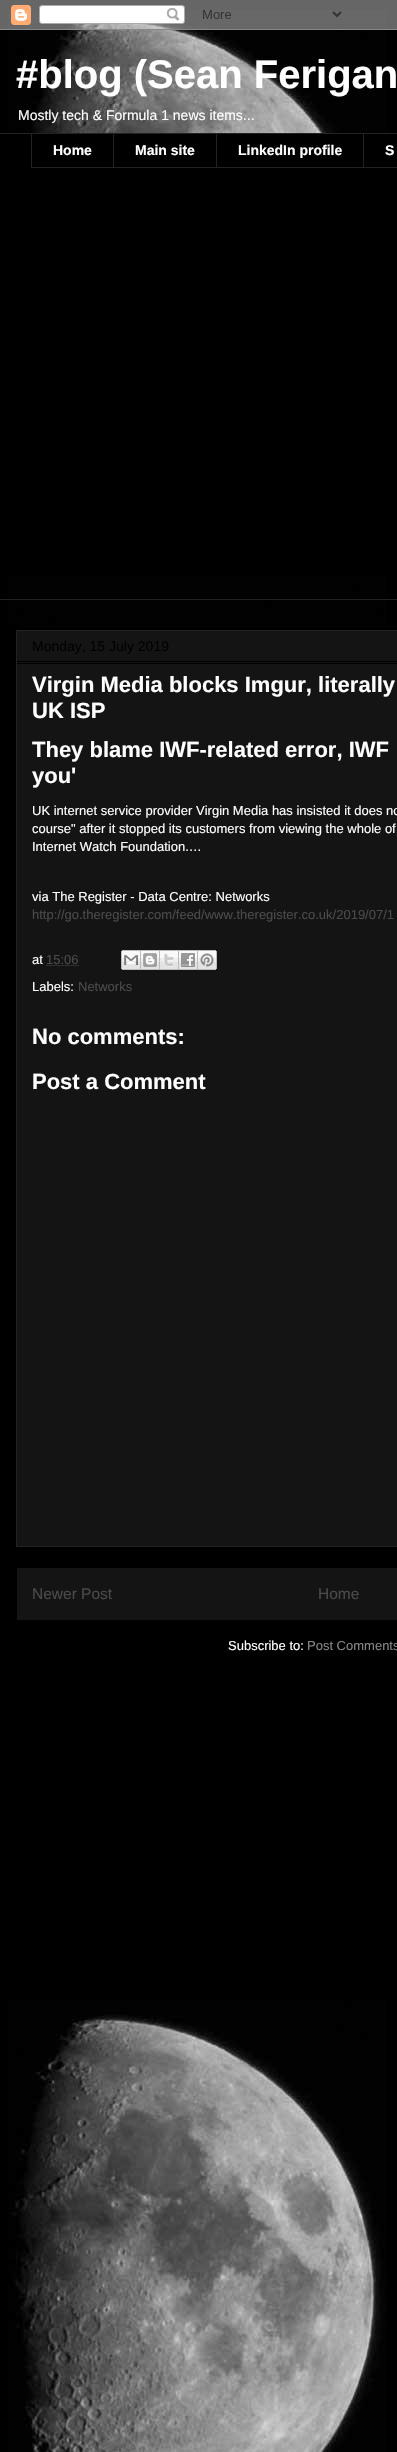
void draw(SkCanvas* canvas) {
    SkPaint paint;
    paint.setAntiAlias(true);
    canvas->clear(0xFF000000);
    canvas->drawImageRect(SkImages::DeferredFromEncodedData(SkData::MakeFromFileName("img1.png")), SkRect::MakeXYWH(8, 10, 379, 2442), SkSamplingOptions());
    canvas->drawImageRect(SkImages::DeferredFromEncodedData(SkData::MakeFromFileName("img2.png")), SkRect::MakeXYWH(0, 0, 397, 30), SkSamplingOptions());
    SkFont font1(fontMgr->matchFamilyStyle("Liberation Sans", SkFontStyle::Bold()), 40);
    font1.setSubpixel(true);
    paint.setColor(0xFFFFFFFF);
    canvas->drawString("#blog (Sean Ferigan", 16, 88, font1, paint);
    SkFont font2(fontMgr->matchFamilyStyle("Liberation Sans", SkFontStyle::Normal()), 14);
    font2.setSubpixel(true);
    canvas->drawString("Mostly tech & Formula 1 news items...", 18, 120, font2, paint);
    paint.setColor(0xFF000000);
    canvas->drawRect(SkRect::MakeXYWH(8, 134, 379, 441), paint);
    paint.setColor(0xFF222222);
    canvas->drawRect(SkRect::MakeXYWH(0, 133, 363, 1), paint);
    canvas->drawRect(SkRect::MakeXYWH(31, 167, 332, 1), paint);
    canvas->drawRect(SkRect::MakeXYWH(31, 133, 1, 35), paint);
    SkFont font3(fontMgr->matchFamilyStyle("Liberation Sans", SkFontStyle::Bold()), 14);
    font3.setSubpixel(true);
    paint.setColor(0xFFFFFFFF);
    canvas->drawString("Home", 53, 155, font3, paint);
    paint.setColor(0xFF222222);
    canvas->drawRect(SkRect::MakeXYWH(113, 133, 1, 35), paint);
    paint.setColor(0xFFFFFFFF);
    canvas->drawString("Main site", 135, 155, font3, paint);
    paint.setColor(0xFF222222);
    canvas->drawRect(SkRect::MakeXYWH(216, 133, 1, 35), paint);
    paint.setColor(0xFFFFFFFF);
    canvas->drawString("LinkedIn profile", 238, 155, font3, paint);
    paint.setStyle(SkPaint::kStroke_Style);
    paint.setStrokeWidth(1);
    paint.setColor(0xFF222222);
    canvas->drawRect(SkRect::MakeXYWH(363.5f, 133.5f, 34, 34), paint);
    paint.setStyle(SkPaint::kFill_Style);
    paint.setColor(0xFFFFFFFF);
    canvas->drawString("S", 385, 155, font3, paint);
    paint.setColor(0xFF222222);
    canvas->drawRect(SkRect::MakeXYWH(0, 599, 397, 1), paint);
    paint.setColor(0xFF141414);
    canvas->drawRect(SkRect::MakeXYWH(16.5f, 630.5f, 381, 916), paint);
    paint.setStyle(SkPaint::kStroke_Style);
    paint.setColor(0xFF222222);
    canvas->drawRect(SkRect::MakeXYWH(16.5f, 630.5f, 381, 916), paint);
    paint.setStyle(SkPaint::kFill_Style);
    paint.setColor(0xFF000000);
    canvas->drawRect(SkRect::MakeXYWH(17, 661, 380, 1), paint);
    canvas->drawString("Monday, 15 July 2019", 32, 651, font2, paint);
    canvas->drawRect(SkRect::MakeXYWH(17, 663, 380, 1), paint);
    SkFont font4(fontMgr->matchFamilyStyle("Liberation Sans", SkFontStyle::Bold()), 22);
    font4.setSubpixel(true);
    paint.setColor(0xFFFFFFFF);
    canvas->drawString("Virgin Media blocks Imgur, literally", 32, 692, font4, paint);
    canvas->drawString("UK ISP", 32, 718, font4, paint);
    canvas->drawString("They blame IWF-related error, IWF", 32, 757, font4, paint);
    canvas->drawString("you'", 32, 783, font4, paint);
    SkFont font5(fontMgr->matchFamilyStyle("Liberation Sans", SkFontStyle::Normal()), 13);
    font5.setSubpixel(true);
    canvas->drawString("UK internet service provider Virgin Media has insisted it does no", 32, 815, font5, paint);
    canvas->drawString("course\" after it stopped its customers from viewing the whole of", 32, 833, font5, paint);
    canvas->drawString("Internet Watch Foundation.…", 32, 851, font5, paint);
    canvas->drawString("via The Register - Data Centre: Networks", 32, 901, font5, paint);
    paint.setColor(0xFF4A4A4A);
    canvas->drawString("http://go.theregister.com/feed/www.theregister.co.uk/2019/07/1", 32, 919, font5, paint);
    paint.setColor(0xFFFFFFFF);
    canvas->drawString("at", 32, 964, font5, paint);
    paint.setColor(0xFF4A4A4A);
    canvas->drawString("15:06", 46, 964, font5, paint);
    paint.setStyle(SkPaint::kStroke_Style);
    paint.setPathEffect(SkDashPathEffect::Make({{1, 1}}, 0));
    canvas->drawPath(SkPathBuilder().moveTo(46.5f, 965.5f).lineTo(79, 965.5f).detach(), paint);
    paint.setPathEffect(nullptr);
    canvas->drawImageRect(SkImages::DeferredFromEncodedData(SkData::MakeFromFileName("img3.png")), SkRect::MakeXYWH(121, 950, 20, 20), SkSamplingOptions());
    canvas->drawImageRect(SkImages::DeferredFromEncodedData(SkData::MakeFromFileName("img4.png")), SkRect::MakeXYWH(141, 950, 19, 20), SkSamplingOptions());
    canvas->drawImageRect(SkImages::DeferredFromEncodedData(SkData::MakeFromFileName("img5.png")), SkRect::MakeXYWH(160, 950, 19, 20), SkSamplingOptions());
    canvas->drawImageRect(SkImages::DeferredFromEncodedData(SkData::MakeFromFileName("img6.png")), SkRect::MakeXYWH(179, 950, 19, 20), SkSamplingOptions());
    canvas->drawImageRect(SkImages::DeferredFromEncodedData(SkData::MakeFromFileName("img7.png")), SkRect::MakeXYWH(198, 950, 19, 20), SkSamplingOptions());
    paint.setStyle(SkPaint::kFill_Style);
    paint.setColor(0xFFFFFFFF);
    canvas->drawString("Labels:", 32, 991, font5, paint);
    paint.setColor(0xFF4A4A4A);
    canvas->drawString("Networks", 78, 991, font5, paint);
    paint.setColor(0xFFFFFFFF);
    canvas->drawString("No comments:", 32, 1044, font4, paint);
    canvas->drawString("Post a Comment", 32, 1089, font4, paint);
    paint.setColor(0xFF141414);
    canvas->drawRect(SkRect::MakeXYWH(17, 1568, 380, 52), paint);
    SkFont font6(fontMgr->matchFamilyStyle("Liberation Sans", SkFontStyle::Normal()), 15.5f);
    font6.setSubpixel(true);
    paint.setColor(0xFF4A4A4A);
    canvas->drawString("Newer Post", 32, 1599, font6, paint);
    canvas->drawString("Home", 318, 1599, font6, paint);
    paint.setColor(0xFFFFFFFF);
    canvas->drawString("Subscribe to:", 228, 1650, font5, paint);
    paint.setColor(0xFF888888);
    canvas->drawString("Post Comments", 307, 1650, font5, paint);
}
